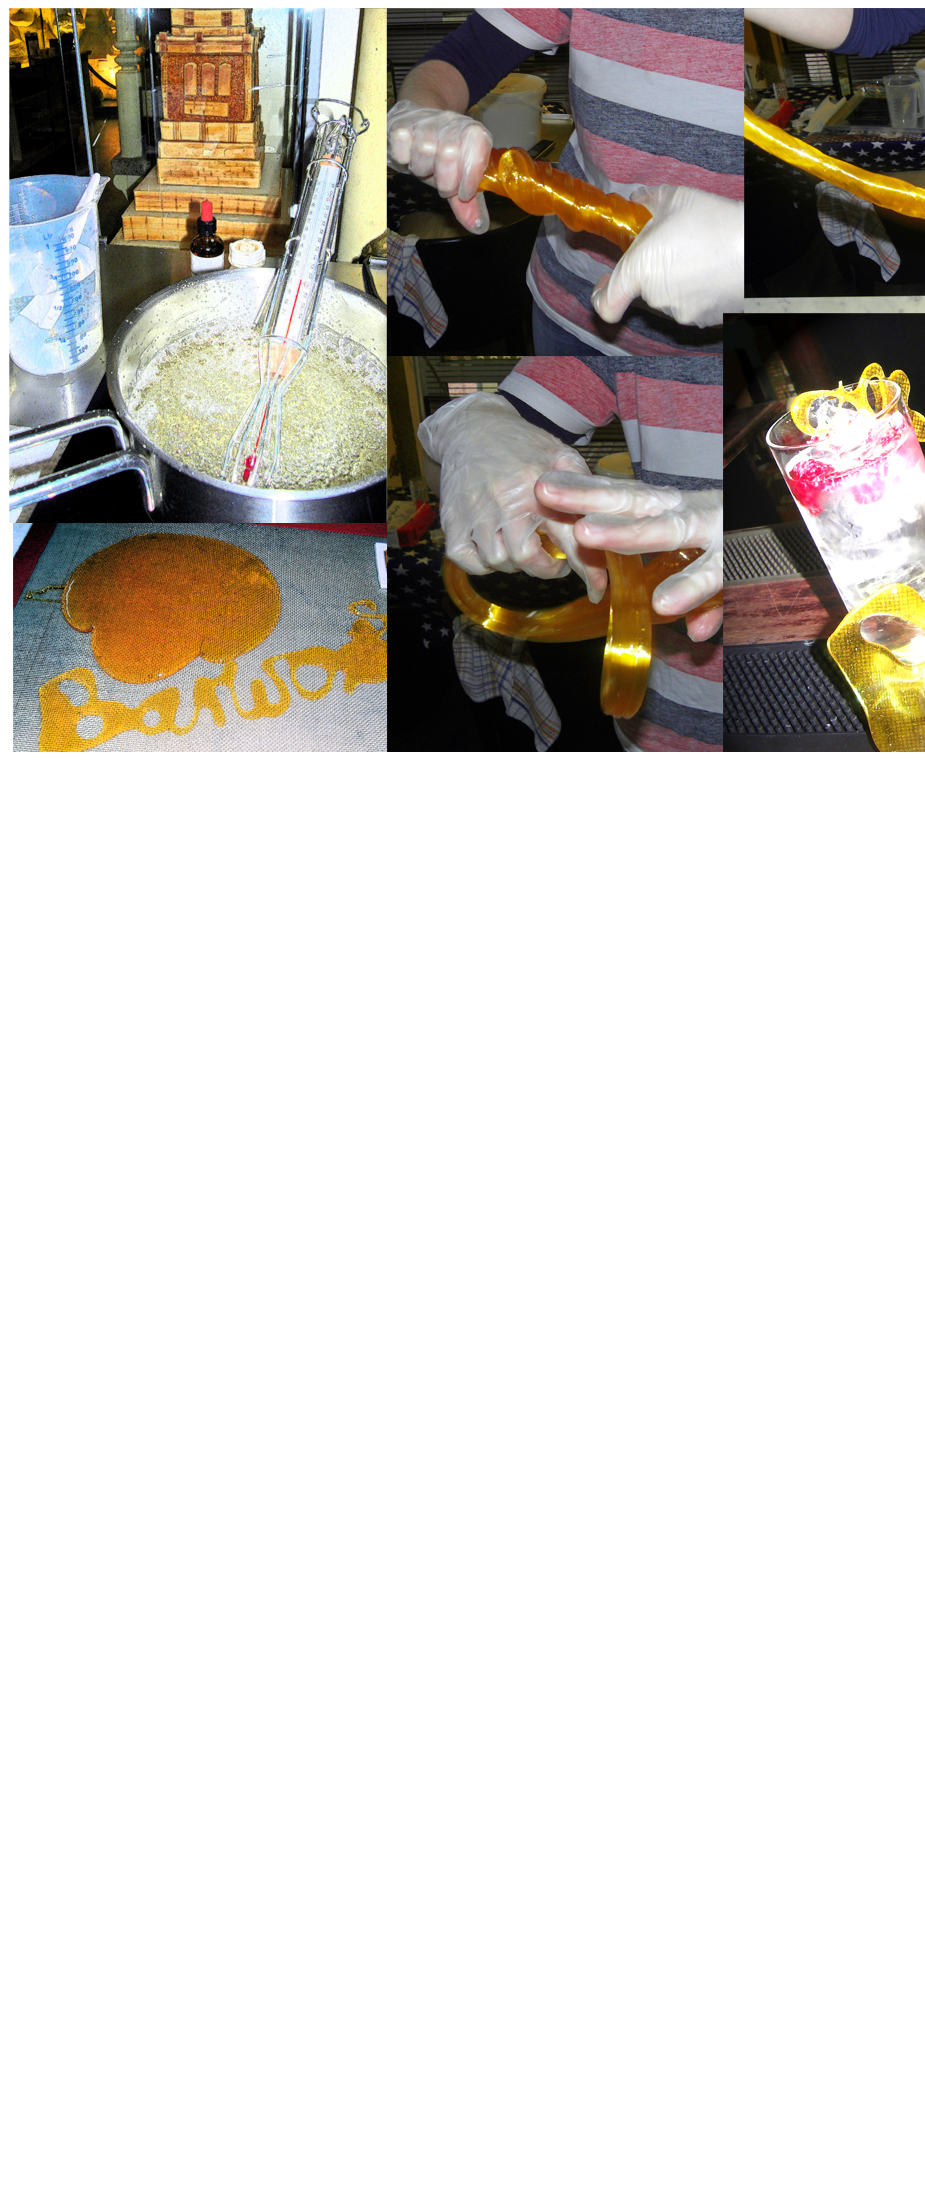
void draw(SkCanvas* canvas) {
    SkPaint paint;
    paint.setAntiAlias(true);
    canvas->clear(0xFFFFFFFF);
    canvas->drawImageRect(SkImages::DeferredFromEncodedData(SkData::MakeFromFileName("img1.png")), SkRect::MakeXYWH(8, 8, 917, 744), SkSamplingOptions());
}
